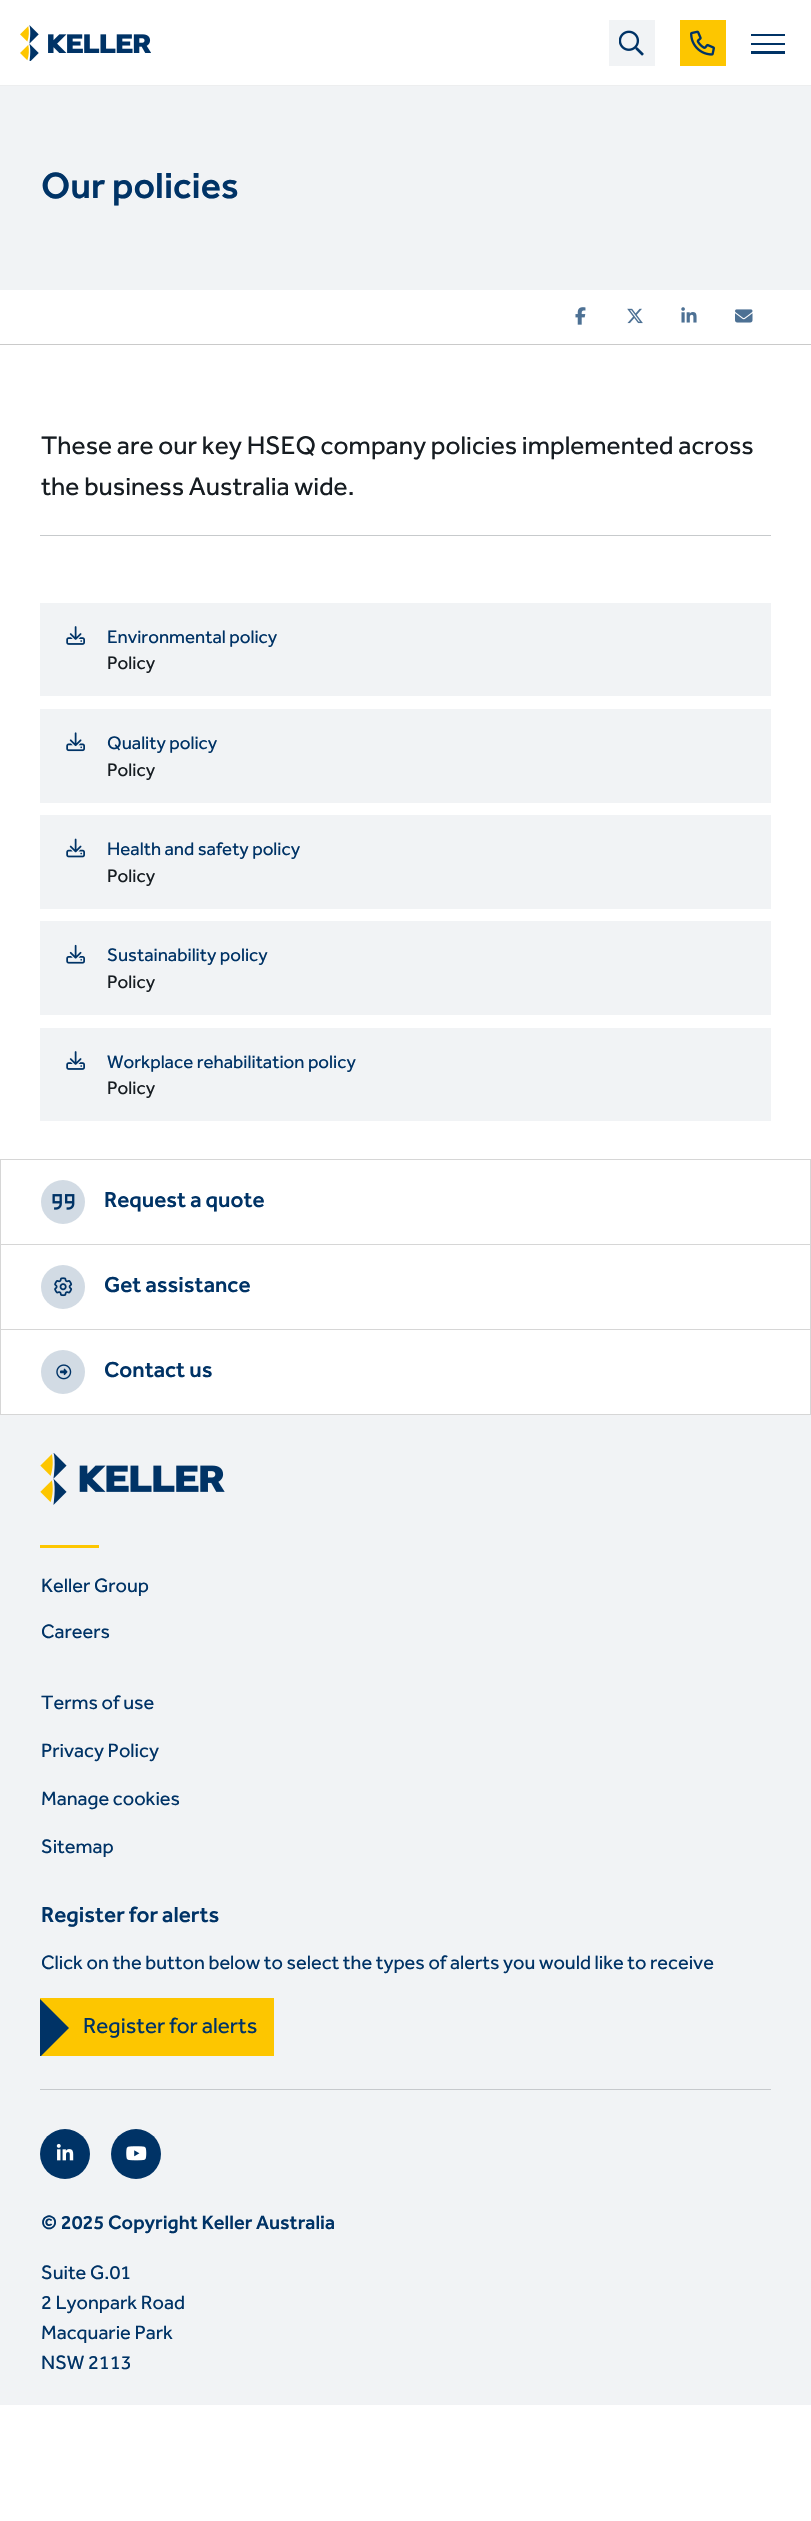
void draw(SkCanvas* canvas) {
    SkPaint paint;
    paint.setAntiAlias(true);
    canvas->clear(0xFFFFFFFF);
    paint.setColor(0xFFEDEEEF);
    canvas->drawRect(SkRect::MakeXYWH(0, 85, 811, 1), paint);
    canvas->drawImageRect(SkImages::DeferredFromEncodedData(SkData::MakeFromFileName("img1.png")), SkRect::MakeXYWH(20, 25, 131, 36), SkSamplingOptions());
    paint.setColor(0xFFF1F3F5);
    canvas->drawRect(SkRect::MakeXYWH(609, 20, 46, 46), paint);
    canvas->drawImageRect(SkImages::DeferredFromEncodedData(SkData::MakeFromFileName("img2.png")), SkRect::MakeXYWH(619, 30, 25, 26), SkSamplingOptions());
    paint.setColor(0xFFFDC600);
    canvas->drawRect(SkRect::MakeXYWH(680, 20, 46, 46), paint);
    canvas->drawImageRect(SkImages::DeferredFromEncodedData(SkData::MakeFromFileName("img3.png")), SkRect::MakeXYWH(690, 30, 25, 26), SkSamplingOptions());
    paint.setColor(0xFF003366);
    canvas->drawRect(SkRect::MakeXYWH(751, 34, 34, 2), paint);
    canvas->drawRect(SkRect::MakeXYWH(751, 43, 34, 2), paint);
    canvas->drawRect(SkRect::MakeXYWH(751, 51, 34, 3), paint);
    paint.setColor(0xFFF1F3F5);
    canvas->drawRect(SkRect::MakeXYWH(0, 86, 811, 204), paint);
    SkFont font1(fontMgr->matchFamilyStyle("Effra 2", SkFontStyle::Normal()), 37.5f);
    font1.setSubpixel(true);
    paint.setColor(0xFF003366);
    canvas->drawString("Our policies", 41, 198, font1, paint);
    paint.setColor(0xFFCACACA);
    canvas->drawRect(SkRect::MakeXYWH(0, 344, 811, 1), paint);
    canvas->drawImageRect(SkImages::DeferredFromEncodedData(SkData::MakeFromFileName("img4.png")), SkRect::MakeXYWH(575, 307, 11, 18), SkSamplingOptions());
    canvas->drawImageRect(SkImages::DeferredFromEncodedData(SkData::MakeFromFileName("img5.png")), SkRect::MakeXYWH(627, 308, 16, 16), SkSamplingOptions());
    canvas->drawImageRect(SkImages::DeferredFromEncodedData(SkData::MakeFromFileName("img6.png")), SkRect::MakeXYWH(681, 307, 16, 16), SkSamplingOptions());
    canvas->drawImageRect(SkImages::DeferredFromEncodedData(SkData::MakeFromFileName("img7.png")), SkRect::MakeXYWH(735, 309, 18, 14), SkSamplingOptions());
    SkFont font2(fontMgr->matchFamilyStyle("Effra", SkFontStyle::Normal()), 26.25f);
    font2.setSubpixel(true);
    paint.setColor(0xFF171D22);
    canvas->drawString("These are our key HSEQ company policies implemented across", 41, 454, font2, paint);
    canvas->drawString("the business Australia wide.", 41, 495, font2, paint);
    paint.setColor(0xFFC7CACC);
    canvas->drawRect(SkRect::MakeXYWH(40, 535, 731, 1), paint);
    paint.setColor(0xFFF1F3F5);
    canvas->drawRect(SkRect::MakeXYWH(40, 603, 731, 93), paint);
    canvas->drawImageRect(SkImages::DeferredFromEncodedData(SkData::MakeFromFileName("img8.png")), SkRect::MakeXYWH(66, 626, 19, 19), SkSamplingOptions());
    SkFont font3(fontMgr->matchFamilyStyle("Effra", SkFontStyle::Normal()), 18.75f);
    font3.setSubpixel(true);
    paint.setColor(0xFF003366);
    canvas->drawString("Environmental policy", 107, 643, font3, paint);
    paint.setColor(0xFF171D22);
    canvas->drawString("Policy", 107, 669, font3, paint);
    paint.setColor(0xFFF1F3F5);
    canvas->drawRect(SkRect::MakeXYWH(40, 709, 731, 94), paint);
    canvas->drawImageRect(SkImages::DeferredFromEncodedData(SkData::MakeFromFileName("img9.png")), SkRect::MakeXYWH(66, 732, 19, 20), SkSamplingOptions());
    paint.setColor(0xFF003366);
    canvas->drawString("Quality policy", 107, 749, font3, paint);
    paint.setColor(0xFF171D22);
    canvas->drawString("Policy", 107, 776, font3, paint);
    paint.setColor(0xFFF1F3F5);
    canvas->drawRect(SkRect::MakeXYWH(40, 815, 731, 94), paint);
    canvas->drawImageRect(SkImages::DeferredFromEncodedData(SkData::MakeFromFileName("img10.png")), SkRect::MakeXYWH(66, 838, 19, 20), SkSamplingOptions());
    paint.setColor(0xFF003366);
    canvas->drawString("Health and safety policy", 107, 855, font3, paint);
    paint.setColor(0xFF171D22);
    canvas->drawString("Policy", 107, 882, font3, paint);
    paint.setColor(0xFFF1F3F5);
    canvas->drawRect(SkRect::MakeXYWH(40, 921, 731, 94), paint);
    canvas->drawImageRect(SkImages::DeferredFromEncodedData(SkData::MakeFromFileName("img11.png")), SkRect::MakeXYWH(66, 944, 19, 20), SkSamplingOptions());
    paint.setColor(0xFF003366);
    canvas->drawString("Sustainability policy", 107, 961, font3, paint);
    paint.setColor(0xFF171D22);
    canvas->drawString("Policy", 107, 988, font3, paint);
    paint.setColor(0xFFF1F3F5);
    canvas->drawRect(SkRect::MakeXYWH(40, 1028, 731, 93), paint);
    canvas->drawImageRect(SkImages::DeferredFromEncodedData(SkData::MakeFromFileName("img8.png")), SkRect::MakeXYWH(66, 1051, 19, 19), SkSamplingOptions());
    paint.setColor(0xFF003366);
    canvas->drawString("Workplace rehabilitation policy", 107, 1068, font3, paint);
    paint.setColor(0xFF171D22);
    canvas->drawString("Policy", 107, 1094, font3, paint);
    paint.setColor(0xFFF1F3F5);
    canvas->drawRect(SkRect::MakeXYWH(0, 1415, 811, 990), paint);
    paint.setStyle(SkPaint::kStroke_Style);
    paint.setStrokeWidth(1);
    paint.setColor(0xFFD6D6D6);
    canvas->drawRect(SkRect::MakeXYWH(0.5f, 1159.5f, 810, 85), paint);
    paint.setStyle(SkPaint::kFill_Style);
    paint.setColor(0xFFD2DBE4);
    canvas->drawCircle(63, 1202, 22, paint);
    canvas->drawImageRect(SkImages::DeferredFromEncodedData(SkData::MakeFromFileName("img12.png")), SkRect::MakeXYWH(52, 1194, 23, 16), SkSamplingOptions());
    SkFont font4(fontMgr->matchFamilyStyle("Effra 2", SkFontStyle::Normal()), 22.5f);
    font4.setSubpixel(true);
    paint.setColor(0xFF003366);
    canvas->drawString("Request a quote", 104, 1207, font4, paint);
    paint.setStyle(SkPaint::kStroke_Style);
    paint.setColor(0xFFD6D6D6);
    canvas->drawRect(SkRect::MakeXYWH(0.5f, 1244.5f, 810, 85), paint);
    paint.setStyle(SkPaint::kFill_Style);
    paint.setColor(0xFFD2DBE4);
    canvas->drawCircle(63, 1287, 22, paint);
    canvas->drawImageRect(SkImages::DeferredFromEncodedData(SkData::MakeFromFileName("img13.png")), SkRect::MakeXYWH(54, 1277, 19, 20), SkSamplingOptions());
    paint.setColor(0xFF003366);
    canvas->drawString("Get assistance", 104, 1292, font4, paint);
    paint.setStyle(SkPaint::kStroke_Style);
    paint.setColor(0xFFD6D6D6);
    canvas->drawRect(SkRect::MakeXYWH(0.5f, 1329.5f, 810, 85), paint);
    paint.setStyle(SkPaint::kFill_Style);
    paint.setColor(0xFFD2DBE4);
    canvas->drawCircle(63, 1372, 22, paint);
    canvas->drawImageRect(SkImages::DeferredFromEncodedData(SkData::MakeFromFileName("img14.png")), SkRect::MakeXYWH(56, 1364, 16, 16), SkSamplingOptions());
    paint.setColor(0xFF003366);
    canvas->drawString("Contact us", 104, 1377, font4, paint);
    canvas->drawImageRect(SkImages::DeferredFromEncodedData(SkData::MakeFromFileName("img15.png")), SkRect::MakeXYWH(40, 1453, 185, 52), SkSamplingOptions());
    paint.setColor(0xFFFDC600);
    canvas->drawRect(SkRect::MakeXYWH(40, 1545, 59, 3), paint);
    SkFont font5(fontMgr->matchFamilyStyle("Effra", SkFontStyle::Normal()), 20);
    font5.setSubpixel(true);
    paint.setColor(0xFF003366);
    canvas->drawString("Keller Group", 41, 1592, font5, paint);
    canvas->drawString("Careers", 41, 1638, font5, paint);
    canvas->drawString("Terms of use", 41, 1709, font5, paint);
    canvas->drawString("Privacy Policy", 41, 1757, font5, paint);
    canvas->drawString("Manage cookies", 41, 1805, font5, paint);
    canvas->drawString("Sitemap", 41, 1853, font5, paint);
    paint.setColor(0xFFC6C9CC);
    canvas->drawRect(SkRect::MakeXYWH(40, 2089, 731, 1), paint);
    paint.setColor(0xFF003366);
    canvas->drawString("Register for alerts", 41, 1922, font4, paint);
    canvas->drawString("Click on the button below to select the types of alerts you would like to receive", 41, 1969, font5, paint);
    paint.setColor(0xFFFDC600);
    canvas->drawRect(SkRect::MakeXYWH(40, 1998, 234, 58), paint);
    canvas->save();
    canvas->clipRect(SkRect::MakeXYWH(40, 1998, 30, 58));
    paint.setColor(0xFF003366);
    canvas->drawPath(SkPathBuilder(SkPathFillType::kEvenOdd).moveTo(9, 2028).lineTo(39, 1998).lineTo(69, 2028).lineTo(39, 2058).close().detach(), paint);
    canvas->restore();
    SkFont font6(fontMgr->matchFamilyStyle("Effra", SkFontStyle::Normal()), 22.5f);
    font6.setSubpixel(true);
    canvas->drawString("Register for alerts", 83, 2033, font6, paint);
    canvas->drawCircle(65, 2154, 25, paint);
    canvas->drawImageRect(SkImages::DeferredFromEncodedData(SkData::MakeFromFileName("img16.png")), SkRect::MakeXYWH(56, 2143, 18, 18), SkSamplingOptions());
    canvas->drawCircle(136, 2154, 25, paint);
    canvas->drawImageRect(SkImages::DeferredFromEncodedData(SkData::MakeFromFileName("img17.png")), SkRect::MakeXYWH(126, 2146, 21, 15), SkSamplingOptions());
    SkFont font7(fontMgr->matchFamilyStyle("Effra 2", SkFontStyle::Normal()), 20);
    font7.setSubpixel(true);
    canvas->drawString("© 2025 Copyright Keller Australia", 41, 2229, font7, paint);
    canvas->drawString("Suite G.01", 41, 2279, font5, paint);
    canvas->drawString("2 Lyonpark Road", 41, 2309, font5, paint);
    canvas->drawString("Macquarie Park", 41, 2339, font5, paint);
    canvas->drawString("NSW 2113", 41, 2369, font5, paint);
}
